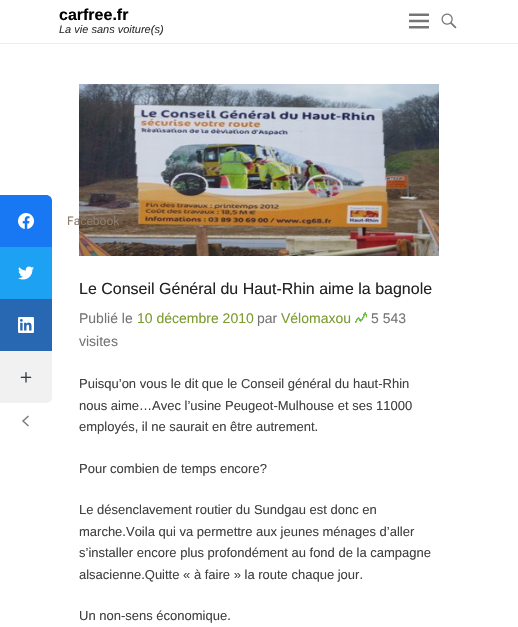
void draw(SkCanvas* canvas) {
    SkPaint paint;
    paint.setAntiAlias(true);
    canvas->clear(0xFFFFFFFF);
    paint.setColor(0xFFEEEEEE);
    canvas->drawRect(SkRect::MakeXYWH(0, 43, 518, 1), paint);
    SkFont font1(fontMgr->matchFamilyStyle("Liberation Sans", SkFontStyle::Bold()), 16);
    font1.setSubpixel(true);
    paint.setColor(0xFF000000);
    canvas->drawString("carfree.fr", 59, 20, font1, paint);
    SkFont font2(fontMgr->matchFamilyStyle("Liberation Sans", SkFontStyle::Italic()), 11);
    font2.setSubpixel(true);
    paint.setColor(0xFF333333);
    canvas->drawString("La vie sans voiture(s)", 59, 33, font2, paint);
    canvas->drawImageRect(SkImages::DeferredFromEncodedData(SkData::MakeFromFileName("img1.png")), SkRect::MakeXYWH(409, 13, 20, 16), SkSamplingOptions());
    canvas->drawImageRect(SkImages::DeferredFromEncodedData(SkData::MakeFromFileName("img2.png")), SkRect::MakeXYWH(441, 13, 16, 16), SkSamplingOptions());
    canvas->drawImageRect(SkImages::DeferredFromEncodedData(SkData::MakeFromFileName("img3.png")), SkRect::MakeXYWH(79, 84, 360, 172), SkSamplingOptions());
    SkFont font3(fontMgr->matchFamilyStyle("Liberation Sans", SkFontStyle::Normal()), 16);
    font3.setSubpixel(true);
    paint.setColor(0xFF222222);
    canvas->drawString("Le Conseil Général du Haut-Rhin aime la bagnole", 79, 294, font3, paint);
    SkFont font4(fontMgr->matchFamilyStyle("Liberation Sans", SkFontStyle::Normal()), 14);
    font4.setSubpixel(true);
    paint.setColor(0xFF757575);
    canvas->drawString("Publié le", 79, 323, font4, paint);
    paint.setColor(0xFF7C9B30);
    canvas->drawString("10 décembre 2010", 137, 323, font4, paint);
    paint.setColor(0xFF757575);
    canvas->drawString("par", 257, 323, font4, paint);
    paint.setColor(0xFF7C9B30);
    canvas->drawString("Vélomaxou", 281, 323, font4, paint);
    canvas->drawImageRect(SkImages::DeferredFromEncodedData(SkData::MakeFromFileName("img4.png")), SkRect::MakeXYWH(355, 312, 12, 11), SkSamplingOptions());
    paint.setColor(0xFF757575);
    canvas->drawString("5 543", 371, 323, font4, paint);
    canvas->drawString("visites", 79, 346, font4, paint);
    SkFont font5(fontMgr->matchFamilyStyle("Liberation Sans", SkFontStyle::Normal()), 13);
    font5.setSubpixel(true);
    paint.setColor(0xFF404040);
    canvas->drawString("Puisqu’on vous le dit que le Conseil général du haut-Rhin", 79, 388, font5, paint);
    canvas->drawString("nous aime…Avec l’usine Peugeot-Mulhouse et ses 11000", 79, 410, font5, paint);
    canvas->drawString("employés, il ne saurait en être autrement.", 79, 431, font5, paint);
    canvas->drawString("Pour combien de temps encore?", 79, 473, font5, paint);
    canvas->drawString("Le désenclavement routier du Sundgau est donc en", 79, 514, font5, paint);
    canvas->drawString("marche.Voila qui va permettre aux jeunes ménages d’aller", 79, 536, font5, paint);
    canvas->drawString("s’installer encore plus profondément au fond de la campagne", 79, 557, font5, paint);
    canvas->drawString("alsacienne.Quitte « à faire » la route chaque jour.", 79, 579, font5, paint);
    canvas->drawString("Un non-sens économique.", 79, 620, font5, paint);
    paint.setColor(0xFF1877F2);
    canvas->drawPath(SkPathBuilder().moveTo(0, 195).lineTo(46, 195).cubicTo(49.5f, 195, 52, 197.5f, 52, 201).lineTo(52, 247).lineTo(0, 247).close().detach(), paint);
    canvas->drawImageRect(SkImages::DeferredFromEncodedData(SkData::MakeFromFileName("img5.png")), SkRect::MakeXYWH(18, 213, 16, 16), SkSamplingOptions());
    SkFont font6(fontMgr->matchFamilyStyle("Roboto", SkFontStyle::Normal()), 12);
    font6.setSubpixel(true);
    paint.setColor(0xFF8C7C6D);
    canvas->drawString("Facebook", 67, 225, font6, paint);
    paint.setColor(0xFF1DA1F2);
    canvas->drawRect(SkRect::MakeXYWH(0, 247, 52, 52), paint);
    canvas->drawImageRect(SkImages::DeferredFromEncodedData(SkData::MakeFromFileName("img6.png")), SkRect::MakeXYWH(18, 266, 16, 14), SkSamplingOptions());
    paint.setColor(0xFF2867B2);
    canvas->drawRect(SkRect::MakeXYWH(0, 299, 52, 52), paint);
    canvas->drawImageRect(SkImages::DeferredFromEncodedData(SkData::MakeFromFileName("img7.png")), SkRect::MakeXYWH(18, 317, 16, 16), SkSamplingOptions());
    paint.setColor(0xFFF1F1F1);
    canvas->drawPath(SkPathBuilder().moveTo(0, 351).lineTo(52, 351).lineTo(52, 397).cubicTo(52, 400.5f, 49.5f, 403, 46, 403).lineTo(0, 403).close().detach(), paint);
    canvas->drawImageRect(SkImages::DeferredFromEncodedData(SkData::MakeFromFileName("img8.png")), SkRect::MakeXYWH(20, 372, 12, 11), SkSamplingOptions());
    paint.setStyle(SkPaint::kStroke_Style);
    paint.setStrokeWidth(1.5f);
    paint.setColor(0xFF7B7B7B);
    canvas->drawPath(SkPathBuilder().moveTo(28.5f, 416).lineTo(23, 421).lineTo(28.5f, 426).detach(), paint);
}
